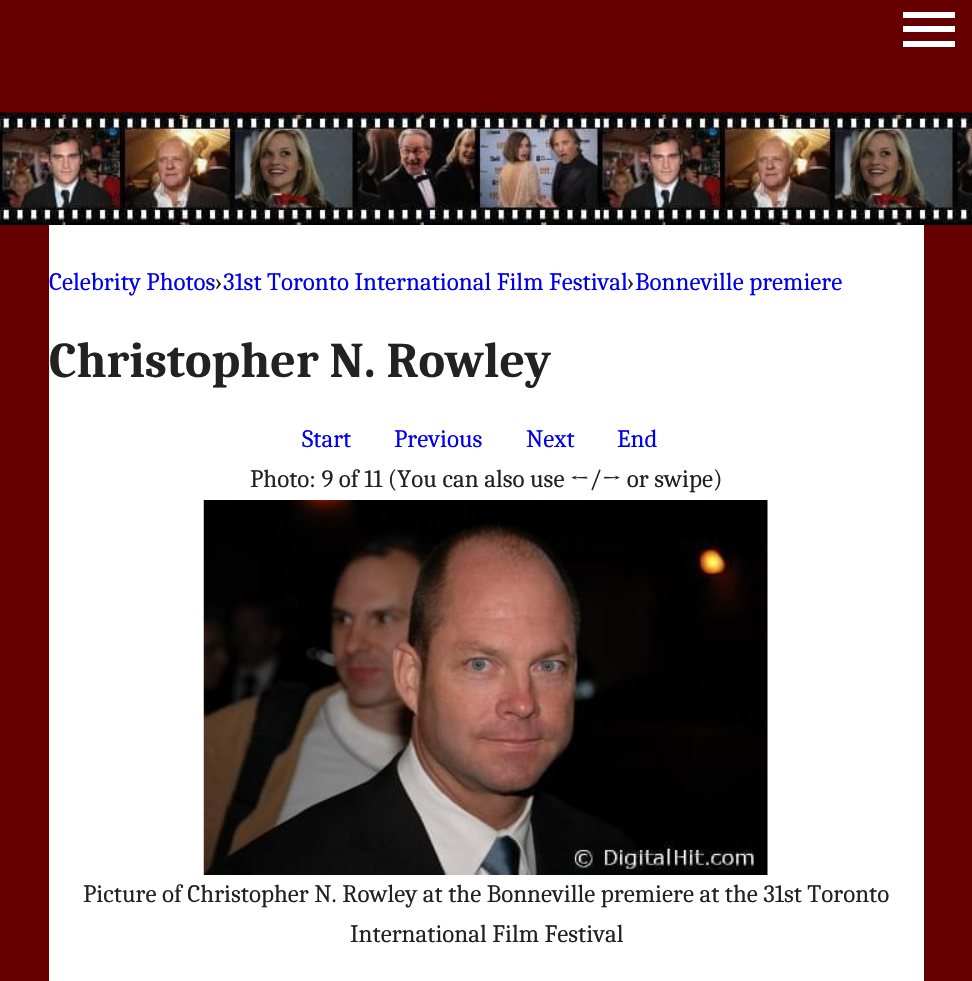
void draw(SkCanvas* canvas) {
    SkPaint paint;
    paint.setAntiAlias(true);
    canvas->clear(0xFF660000);
    paint.setColor(0xFFFFFFFF);
    canvas->drawRect(SkRect::MakeXYWH(903, 12, 52, 6), paint);
    canvas->drawRect(SkRect::MakeXYWH(903, 26, 52, 6), paint);
    canvas->drawRect(SkRect::MakeXYWH(903, 41, 52, 6), paint);
    canvas->drawImageRect(SkImages::DeferredFromEncodedData(SkData::MakeFromFileName("img1.png")), SkRect::MakeXYWH(0, 112, 972, 113), SkSamplingOptions());
    canvas->drawRect(SkRect::MakeXYWH(49, 225, 875, 756), paint);
    SkFont font1(fontMgr->matchFamilyStyle("Caladea", SkFontStyle::Normal()), 25);
    font1.setSubpixel(true);
    paint.setColor(0xFF0000EE);
    canvas->drawString("Celebrity Photos", 49, 290, font1, paint);
    paint.setColor(0xFF222222);
    canvas->drawString("›", 215, 290, font1, paint);
    paint.setColor(0xFF0000EE);
    canvas->drawString("31st Toronto International Film Festival", 223, 290, font1, paint);
    paint.setColor(0xFF222222);
    canvas->drawString("›", 627, 290, font1, paint);
    paint.setColor(0xFF0000EE);
    canvas->drawString("Bonneville premiere", 635, 290, font1, paint);
    SkFont font2(fontMgr->matchFamilyStyle("Caladea", SkFontStyle::Bold()), 50);
    font2.setSubpixel(true);
    paint.setColor(0xFF222222);
    canvas->drawString("Christopher N. Rowley", 49, 377, font2, paint);
    paint.setColor(0xFF0000EE);
    canvas->drawString("Start", 302, 447, font1, paint);
    canvas->drawString("Previous", 394, 447, font1, paint);
    canvas->drawString("Next", 526, 447, font1, paint);
    canvas->drawString("End", 617, 447, font1, paint);
    paint.setColor(0xFF222222);
    canvas->drawString("Photo: 9 of 11 (You can also use ←/→ or swipe)", 250, 487, font1, paint);
    canvas->drawImageRect(SkImages::DeferredFromEncodedData(SkData::MakeFromFileName("img2.png")), SkRect::MakeXYWH(203, 500, 565, 375), SkSamplingOptions());
    canvas->drawString("Picture of Christopher N. Rowley at the Bonneville premiere at the 31st Toronto", 83, 902, font1, paint);
    canvas->drawString("International Film Festival", 350, 942, font1, paint);
}
